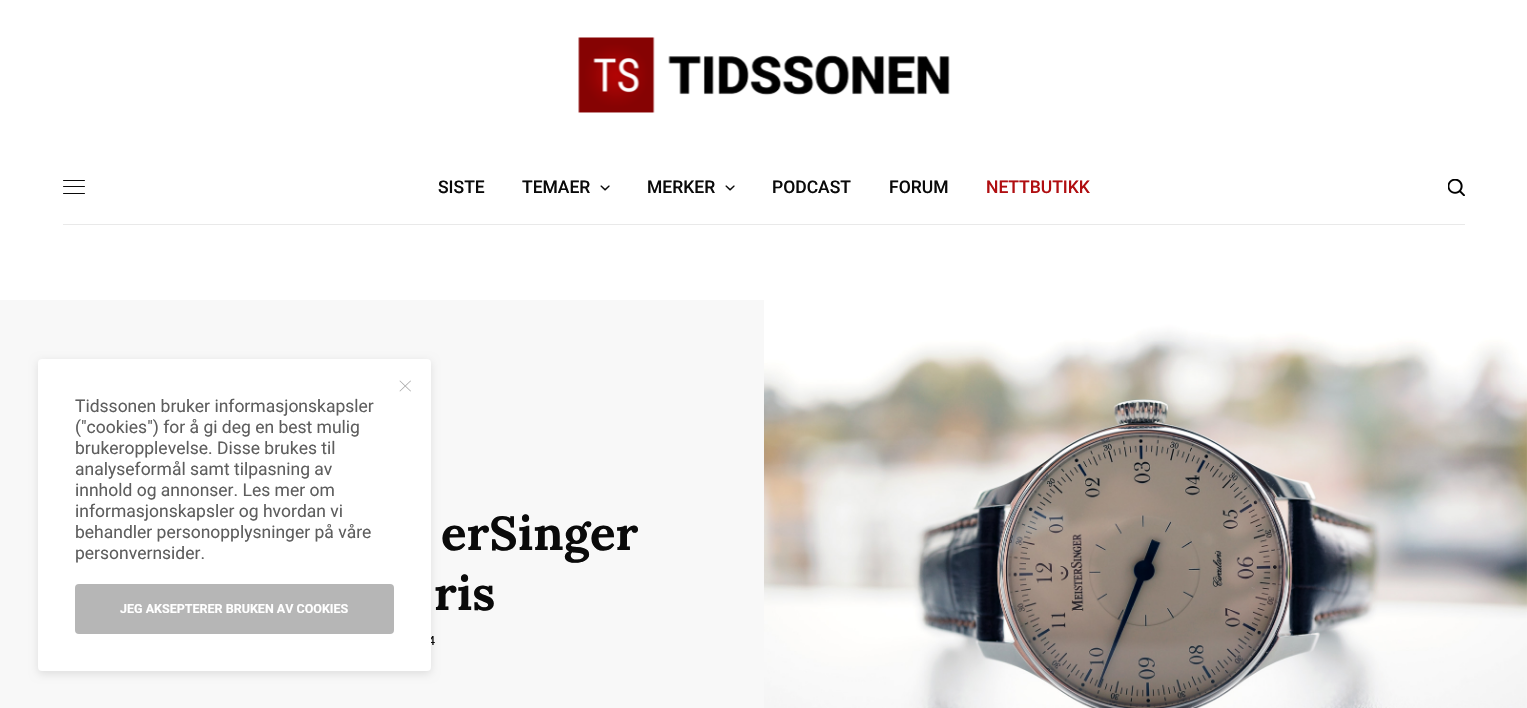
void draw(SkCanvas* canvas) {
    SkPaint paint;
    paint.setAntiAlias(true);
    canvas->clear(0xFFFFFFFF);
    canvas->drawImageRect(SkImages::DeferredFromEncodedData(SkData::MakeFromFileName("img1.png")), SkRect::MakeXYWH(578, 37, 372, 76), SkSamplingOptions());
    paint.setColor(0xFFE9E9E9);
    canvas->drawRect(SkRect::MakeXYWH(63, 224, 1402, 1), paint);
    paint.setColor(0xFF0A0A0A);
    canvas->drawRoundRect(SkRect::MakeXYWH(63, 180, 22, 1), 0.5f, 0.5f, paint);
    canvas->drawRoundRect(SkRect::MakeXYWH(63, 186, 22, 1), 0.5f, 0.5f, paint);
    canvas->drawRoundRect(SkRect::MakeXYWH(63, 193, 22, 1), 0.5f, 0.5f, paint);
    SkFont font1(fontMgr->matchFamilyStyle("Roboto", SkFontStyle(500, SkFontStyle::kNormal_Width, SkFontStyle::kUpright_Slant)), 17.5f);
    font1.setSubpixel(true);
    canvas->drawString("SISTE", 438, 193, font1, paint);
    canvas->drawString("TEMAER", 522, 193, font1, paint);
    canvas->drawImageRect(SkImages::DeferredFromEncodedData(SkData::MakeFromFileName("img2.png")), SkRect::MakeXYWH(600, 185, 10, 6), SkSamplingOptions());
    canvas->drawString("MERKER", 647, 193, font1, paint);
    canvas->drawImageRect(SkImages::DeferredFromEncodedData(SkData::MakeFromFileName("img2.png")), SkRect::MakeXYWH(725, 185, 10, 6), SkSamplingOptions());
    canvas->drawString("PODCAST", 772, 193, font1, paint);
    canvas->drawString("FORUM", 889, 193, font1, paint);
    paint.setColor(0xFFB00E11);
    canvas->drawString("NETTBUTIKK", 986, 193, font1, paint);
    canvas->drawImageRect(SkImages::DeferredFromEncodedData(SkData::MakeFromFileName("img3.png")), SkRect::MakeXYWH(1448, 179, 17, 17), SkSamplingOptions());
    paint.setColor(0xFFF8F8F8);
    canvas->drawRect(SkRect::MakeXYWH(0, 300, 1527, 408), paint);
    paint.setColor(0x1A000000);
    paint.setMaskFilter(SkMaskFilter::MakeBlur(kNormal_SkBlurStyle, 4.5f));
    canvas->drawRoundRect(SkRect::MakeXYWH(38, 361, 393, 313), 4, 4, paint);
    paint.setMaskFilter(nullptr);
    SkFont font2(fontMgr->matchFamilyStyle("Roboto", SkFontStyle::Normal()), 12.5f);
    font2.setSubpixel(true);
    paint.setColor(0xFF0A0A0A);
    canvas->drawString("4", 428, 645, font2, paint);
    paint.setColor(0xFFFFFFFF);
    canvas->drawRoundRect(SkRect::MakeXYWH(38, 359, 393, 312), 4, 4, paint);
    paint.setColor(0xFFA3A3A3);
    canvas->drawPath(SkPathBuilder().moveTo(400, 380.5f).lineTo(411, 391).lineTo(410.5f, 391.5f).lineTo(399.5f, 381).close().detach(), paint);
    canvas->drawPath(SkPathBuilder().moveTo(399.5f, 391).lineTo(410.5f, 380.5f).lineTo(411, 381).lineTo(400, 391.5f).close().detach(), paint);
    SkFont font3(fontMgr->matchFamilyStyle("Roboto", SkFontStyle::Normal()), 17.5f);
    font3.setSubpixel(true);
    paint.setColor(0xFF5E5E5E);
    canvas->drawString("Tidssonen bruker informasjonskapsler", 75, 412, font3, paint);
    canvas->drawString("(\"cookies\") for å gi deg en best mulig", 75, 433, font3, paint);
    canvas->drawString("brukeropplevelse. Disse brukes til", 75, 454, font3, paint);
    canvas->drawString("analyseformål samt tilpasning av", 75, 475, font3, paint);
    canvas->drawString("innhold og annonser. Les mer om", 75, 496, font3, paint);
    canvas->drawString("informasjonskapsler og hvordan vi", 75, 517, font3, paint);
    canvas->drawString("behandler personopplysninger på våre", 75, 538, font3, paint);
    canvas->drawString("personvernsider.", 75, 559, font3, paint);
    paint.setColor(0xFFB6B6B6);
    canvas->drawRoundRect(SkRect::MakeXYWH(75, 584, 319, 50), 4, 4, paint);
    SkFont font4(fontMgr->matchFamilyStyle("Roboto", SkFontStyle::Bold()), 12.5f);
    font4.setSubpixel(true);
    paint.setColor(0xFFFFFFFF);
    canvas->drawString("JEG AKSEPTERER BRUKEN AV COOKIES", 120, 613, font4, paint);
    SkFont font5(fontMgr->matchFamilyStyle("Lora", SkFontStyle::Bold()), 47.5f);
    font5.setSubpixel(true);
    paint.setColor(0xFF0A0A0A);
    canvas->drawString("erSinger", 441, 550, font5, paint);
    canvas->drawString("ris", 434, 610, font5, paint);
    canvas->drawImageRect(SkImages::DeferredFromEncodedData(SkData::MakeFromFileName("img4.png")), SkRect::MakeXYWH(764, 300, 763, 408), SkSamplingOptions());
}
